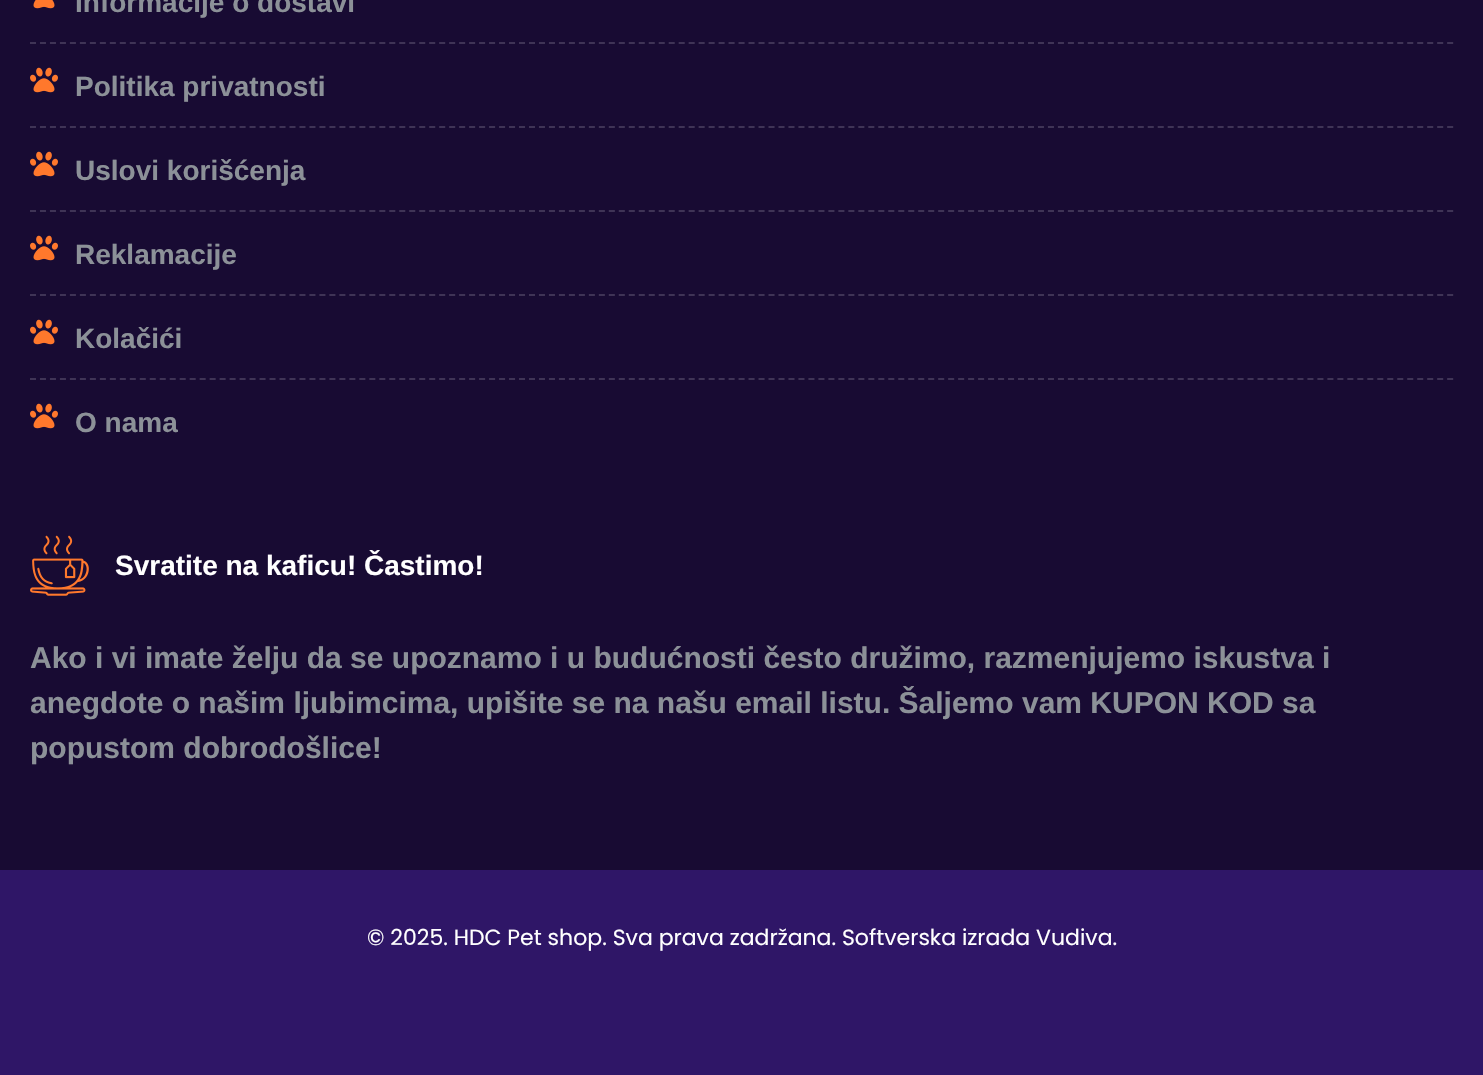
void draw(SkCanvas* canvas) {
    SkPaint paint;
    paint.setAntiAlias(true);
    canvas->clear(0xFF180B33);
    canvas->drawImageRect(SkImages::DeferredFromEncodedData(SkData::MakeFromFileName("img1.png")), SkRect::MakeXYWH(33, 0, 22, 9), SkSamplingOptions());
    SkFont font1(fontMgr->matchFamilyStyle("Liberation Sans", SkFontStyle::Bold()), 28);
    font1.setSubpixel(true);
    paint.setColor(0xFF8C9198);
    canvas->drawString("Informacije o dostavi", 75, 12, font1, paint);
    paint.setStyle(SkPaint::kStroke_Style);
    paint.setStrokeWidth(2);
    paint.setColor(0xFF3F3456);
    paint.setPathEffect(SkDashPathEffect::Make({{6, 3.98f}}, 0));
    canvas->drawPath(SkPathBuilder().moveTo(30, 43).lineTo(1454, 43).detach(), paint);
    paint.setPathEffect(nullptr);
    canvas->drawImageRect(SkImages::DeferredFromEncodedData(SkData::MakeFromFileName("img2.png")), SkRect::MakeXYWH(30, 67, 28, 26), SkSamplingOptions());
    paint.setStyle(SkPaint::kFill_Style);
    paint.setColor(0xFF8C9198);
    canvas->drawString("Politika privatnosti", 75, 96, font1, paint);
    paint.setStyle(SkPaint::kStroke_Style);
    paint.setColor(0xFF3F3456);
    paint.setPathEffect(SkDashPathEffect::Make({{6, 3.98f}}, 0));
    canvas->drawPath(SkPathBuilder().moveTo(30, 127).lineTo(1454, 127).detach(), paint);
    paint.setPathEffect(nullptr);
    canvas->drawImageRect(SkImages::DeferredFromEncodedData(SkData::MakeFromFileName("img2.png")), SkRect::MakeXYWH(30, 151, 28, 26), SkSamplingOptions());
    paint.setStyle(SkPaint::kFill_Style);
    paint.setColor(0xFF8C9198);
    canvas->drawString("Uslovi korišćenja", 75, 180, font1, paint);
    paint.setStyle(SkPaint::kStroke_Style);
    paint.setColor(0xFF3F3456);
    paint.setPathEffect(SkDashPathEffect::Make({{6, 3.98f}}, 0));
    canvas->drawPath(SkPathBuilder().moveTo(30, 211).lineTo(1454, 211).detach(), paint);
    paint.setPathEffect(nullptr);
    canvas->drawImageRect(SkImages::DeferredFromEncodedData(SkData::MakeFromFileName("img2.png")), SkRect::MakeXYWH(30, 235, 28, 26), SkSamplingOptions());
    paint.setStyle(SkPaint::kFill_Style);
    paint.setColor(0xFF8C9198);
    canvas->drawString("Reklamacije", 75, 264, font1, paint);
    paint.setStyle(SkPaint::kStroke_Style);
    paint.setColor(0xFF3F3456);
    paint.setPathEffect(SkDashPathEffect::Make({{6, 3.98f}}, 0));
    canvas->drawPath(SkPathBuilder().moveTo(30, 295).lineTo(1454, 295).detach(), paint);
    paint.setPathEffect(nullptr);
    canvas->drawImageRect(SkImages::DeferredFromEncodedData(SkData::MakeFromFileName("img2.png")), SkRect::MakeXYWH(30, 319, 28, 26), SkSamplingOptions());
    paint.setStyle(SkPaint::kFill_Style);
    paint.setColor(0xFF8C9198);
    canvas->drawString("Kolačići", 75, 348, font1, paint);
    paint.setStyle(SkPaint::kStroke_Style);
    paint.setColor(0xFF3F3456);
    paint.setPathEffect(SkDashPathEffect::Make({{6, 3.98f}}, 0));
    canvas->drawPath(SkPathBuilder().moveTo(30, 379).lineTo(1454, 379).detach(), paint);
    paint.setPathEffect(nullptr);
    canvas->drawImageRect(SkImages::DeferredFromEncodedData(SkData::MakeFromFileName("img2.png")), SkRect::MakeXYWH(30, 403, 28, 26), SkSamplingOptions());
    paint.setStyle(SkPaint::kFill_Style);
    paint.setColor(0xFF8C9198);
    canvas->drawString("O nama", 75, 432, font1, paint);
    canvas->drawImageRect(SkImages::DeferredFromEncodedData(SkData::MakeFromFileName("img3.png")), SkRect::MakeXYWH(30, 535, 59, 61), SkSamplingOptions());
    paint.setColor(0xFFFFFFFF);
    canvas->drawString("Svratite na kaficu! Častimo!", 115, 575, font1, paint);
    SkFont font2(fontMgr->matchFamilyStyle("Liberation Sans", SkFontStyle::Bold()), 30);
    font2.setSubpixel(true);
    paint.setColor(0xFF8C9198);
    canvas->drawString("Ako i vi imate želju da se upoznamo i u budućnosti često družimo, razmenjujemo iskustva i", 30, 668, font2, paint);
    canvas->drawString("anegdote o našim ljubimcima, upišite se na našu email listu. Šaljemo vam KUPON KOD sa", 30, 713, font2, paint);
    canvas->drawString("popustom dobrodošlice!", 30, 758, font2, paint);
    paint.setColor(0xFF2F1667);
    canvas->drawRect(SkRect::MakeXYWH(0, 870, 1483, 205), paint);
    SkFont font3(fontMgr->matchFamilyStyle("Poppins", SkFontStyle::Normal()), 22);
    font3.setSubpixel(true);
    paint.setColor(0xFFFFFFFF);
    canvas->drawString("© 2025. HDC Pet shop. Sva prava zadržana. Softverska izrada Vudiva.", 367, 945, font3, paint);
}
